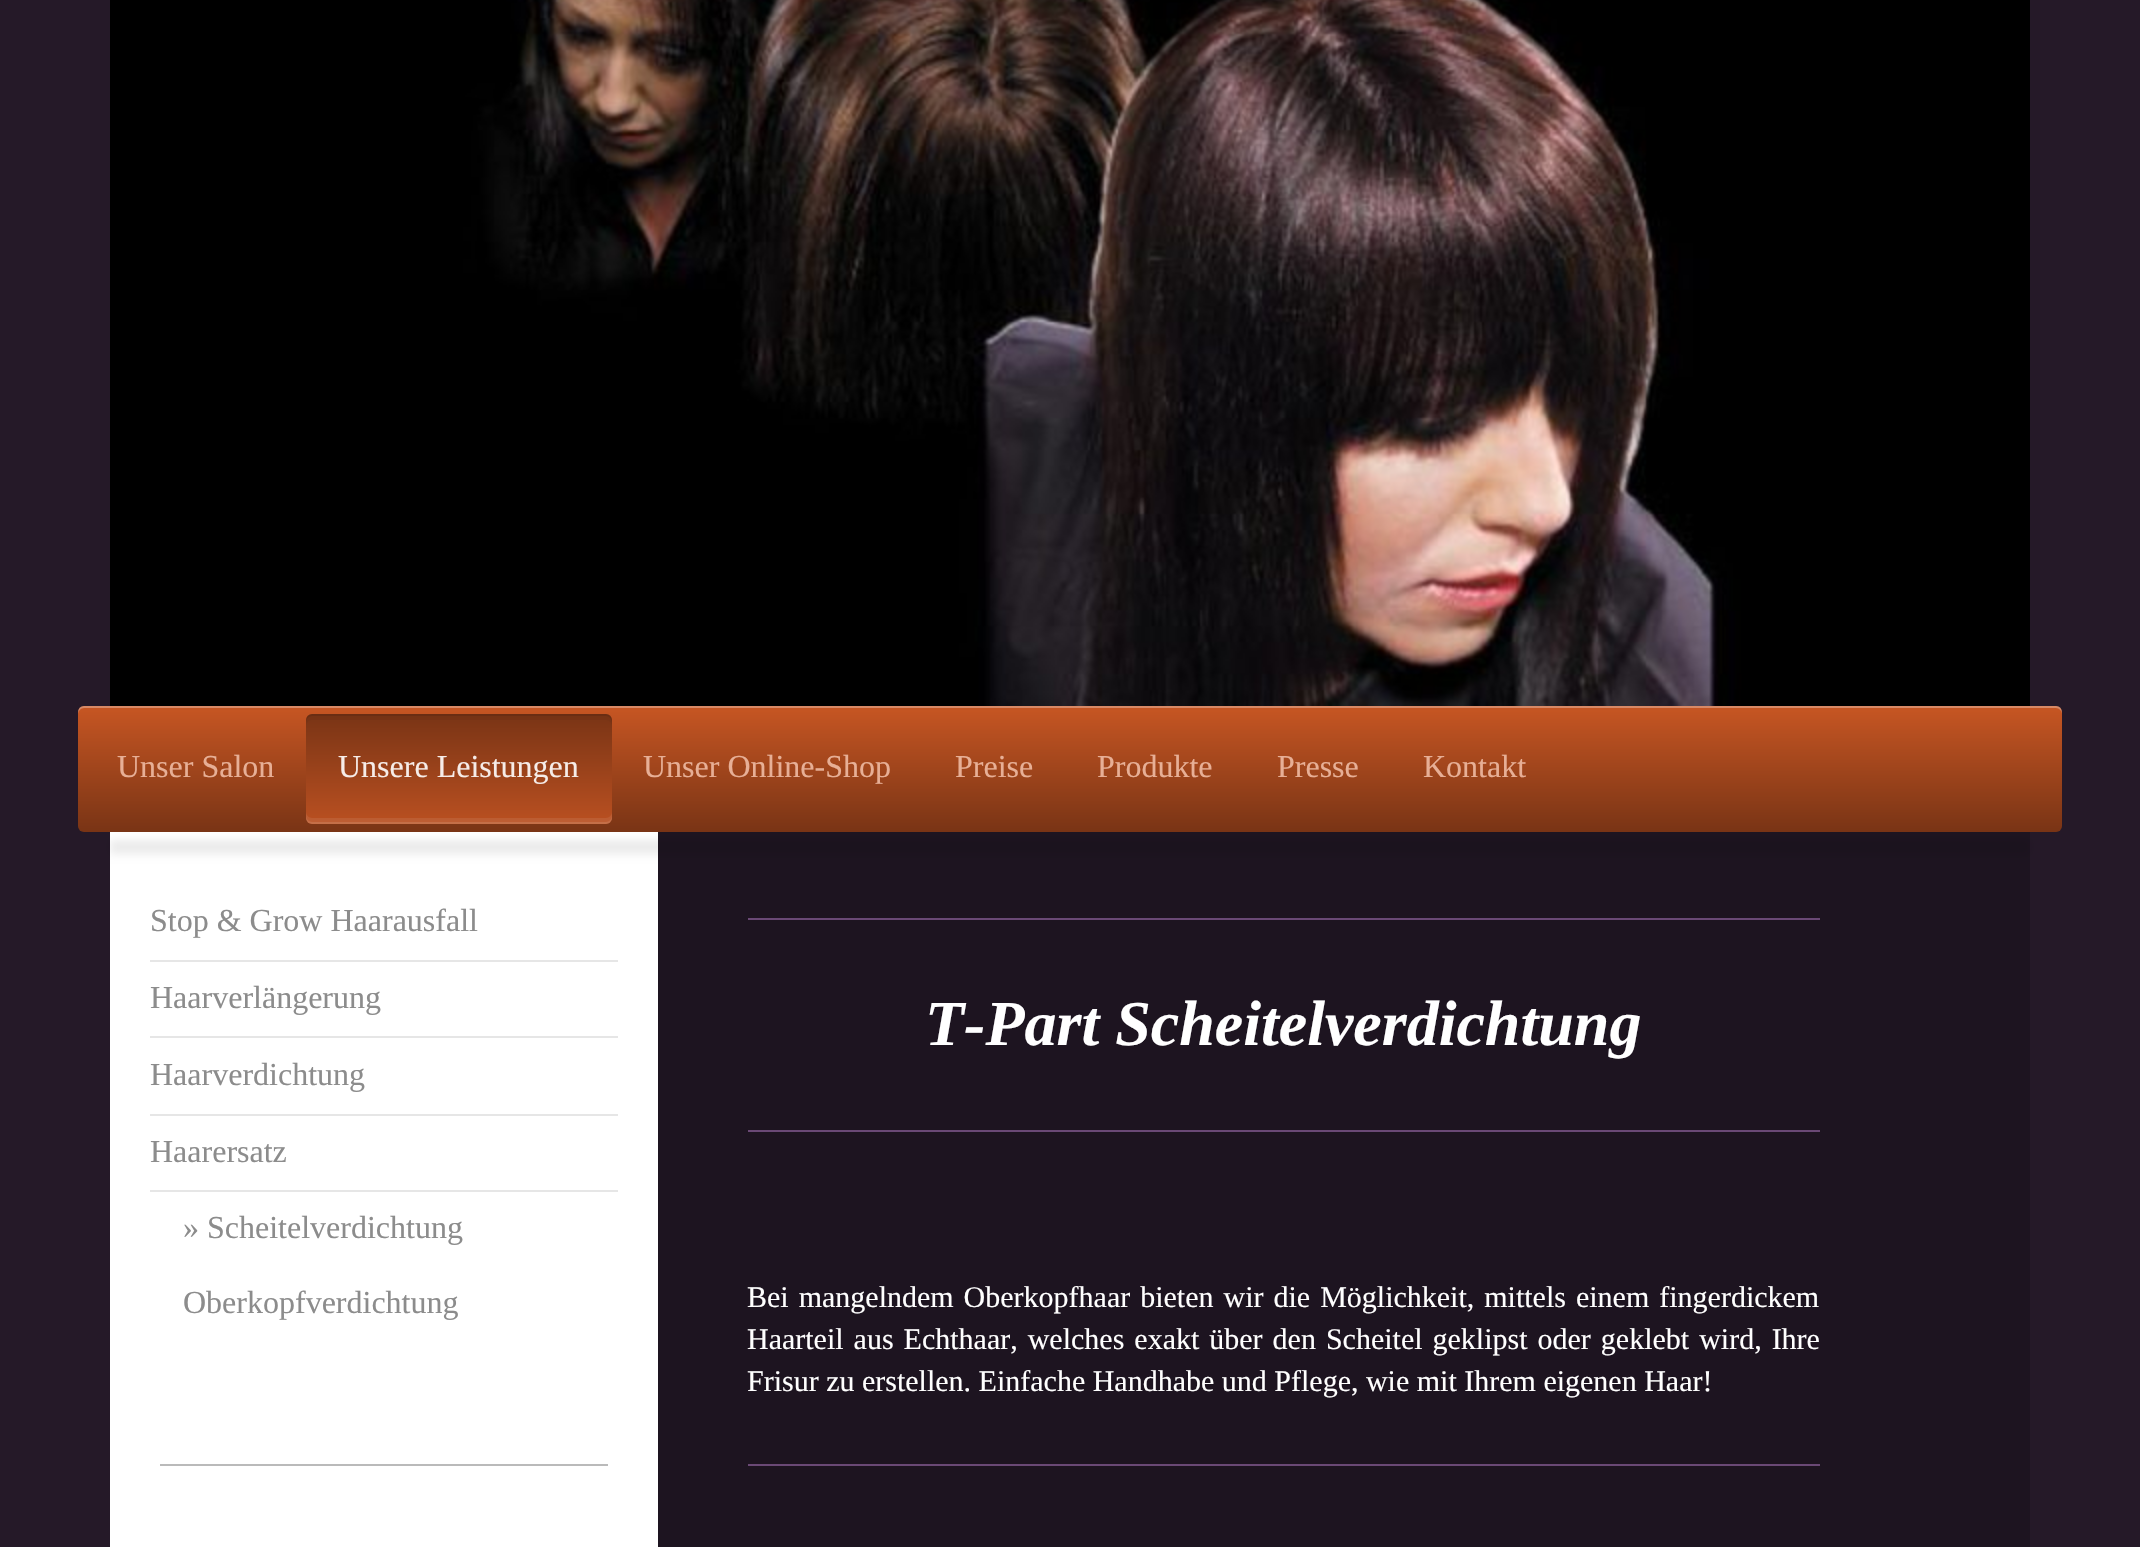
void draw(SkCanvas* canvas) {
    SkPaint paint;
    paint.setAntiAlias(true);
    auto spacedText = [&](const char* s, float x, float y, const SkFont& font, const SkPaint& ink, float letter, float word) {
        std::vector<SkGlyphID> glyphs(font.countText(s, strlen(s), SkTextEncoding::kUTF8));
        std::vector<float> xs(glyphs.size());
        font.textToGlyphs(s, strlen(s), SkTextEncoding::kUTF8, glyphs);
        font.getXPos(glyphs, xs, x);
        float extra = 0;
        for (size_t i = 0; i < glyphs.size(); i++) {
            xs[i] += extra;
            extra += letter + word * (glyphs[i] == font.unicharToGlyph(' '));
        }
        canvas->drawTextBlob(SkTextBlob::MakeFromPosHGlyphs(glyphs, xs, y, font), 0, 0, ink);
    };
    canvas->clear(0xFF251928);
    canvas->drawImageRect(SkImages::DeferredFromEncodedData(SkData::MakeFromFileName("img1.png")), SkRect::MakeXYWH(110, 0, 1920, 706), SkSamplingOptions());
    {
        const SkColor colors[] = {0xFFC75623, 0xFF793415};
        const float stops[] = {0, 1};
        const SkPoint ends[] = {{78, 706}, {78, 832}};
        paint.setShader(SkGradientShader::MakeLinear(ends, colors, stops, 2, SkTileMode::kClamp));
        paint.setAlpha(255);
    }
    canvas->drawRoundRect(SkRect::MakeXYWH(78, 706, 1984, 126), 6, 6, paint);
    paint.setShader(nullptr);
    paint.setColor(0x4DFFFFFF);
    canvas->drawPath(SkPathBuilder().moveTo(84, 708).lineTo(2056, 708).cubicTo(2059, 708, 2062, 711, 2062, 714).cubicTo(2062, 710, 2061, 706, 2056, 706).lineTo(84, 706).cubicTo(79, 706, 78, 710, 78, 714).cubicTo(78, 711, 81, 708, 84, 708).close().detach(), paint);
    SkFont font1(fontMgr->matchFamilyStyle("Liberation Serif", SkFontStyle::Normal()), 32);
    font1.setSubpixel(true);
    paint.setColor(0xFFE7AF96);
    canvas->drawString("Unser Salon", 117, 777, font1, paint);
    {
        const SkColor colors[] = {0xFFBA5021, 0xFF793415};
        const float stops[] = {0, 1};
        const SkPoint ends[] = {{306, 824}, {306, 714}};
        paint.setShader(SkGradientShader::MakeLinear(ends, colors, stops, 2, SkTileMode::kClamp));
        paint.setAlpha(255);
    }
    canvas->drawRoundRect(SkRect::MakeXYWH(306, 714, 306, 110), 6, 6, paint);
    paint.setShader(nullptr);
    paint.setColor(0x1A000000);
    canvas->drawPath(SkPathBuilder().moveTo(312, 716).lineTo(606, 716).cubicTo(609, 716, 612, 719, 612, 722).lineTo(612, 720).cubicTo(612, 717, 609, 714, 606, 714).lineTo(312, 714).cubicTo(309, 714, 306, 717, 306, 720).lineTo(306, 722).cubicTo(306, 719, 309, 716, 312, 716).close().detach(), paint);
    paint.setColor(0x0A000000);
    canvas->drawPath(SkPathBuilder().moveTo(312, 720).lineTo(606, 720).cubicTo(609, 720, 612, 723, 612, 726).lineTo(612, 720).cubicTo(612, 717, 609, 714, 606, 714).lineTo(312, 714).cubicTo(309, 714, 306, 717, 306, 720).lineTo(306, 726).cubicTo(306, 723, 309, 720, 312, 720).close().detach(), paint);
    paint.setColor(0x14FFFFFF);
    canvas->drawPath(SkPathBuilder().moveTo(306, 812).lineTo(306, 818).cubicTo(306, 821, 309, 824, 312, 824).lineTo(606, 824).cubicTo(609, 824, 612, 821, 612, 818).lineTo(612, 812).cubicTo(612, 815, 609, 818, 606, 818).lineTo(312, 818).cubicTo(309, 818, 306, 815, 306, 812).close().detach(), paint);
    paint.setColor(0x1AFFFFFF);
    canvas->drawPath(SkPathBuilder().moveTo(306, 816).lineTo(306, 818).cubicTo(306, 821, 309, 824, 312, 824).lineTo(606, 824).cubicTo(609, 824, 612, 821, 612, 818).lineTo(612, 816).cubicTo(612, 819, 609, 822, 606, 822).lineTo(312, 822).cubicTo(309, 822, 306, 819, 306, 816).close().detach(), paint);
    paint.setColor(0xFFF6ECE8);
    canvas->drawString("Unsere Leistungen", 338, 777, font1, paint);
    paint.setColor(0xFFE7AF96);
    canvas->drawString("Unser Online-Shop", 643, 777, font1, paint);
    canvas->drawString("Preise", 955, 777, font1, paint);
    canvas->drawString("Produkte", 1097, 777, font1, paint);
    canvas->drawString("Presse", 1277, 777, font1, paint);
    canvas->drawString("Kontakt", 1423, 777, font1, paint);
    paint.setColor(0xFF1D1420);
    canvas->drawRect(SkRect::MakeXYWH(658, 832, 1372, 715), paint);
    paint.setColor(0xFFFFFFFF);
    canvas->drawRect(SkRect::MakeXYWH(110, 832, 548, 715), paint);
    paint.setColor(0x14000000);
    paint.setMaskFilter(SkMaskFilter::MakeBlur(kNormal_SkBlurStyle, 4));
    canvas->drawRect(SkRect::MakeXYWH(110, 840, 1920, 14), paint);
    paint.setMaskFilter(nullptr);
    paint.setColor(0xFFE6E6E6);
    canvas->drawRect(SkRect::MakeXYWH(150, 960, 468, 2), paint);
    paint.setColor(0xFF8C8C8C);
    canvas->drawString("Stop & Grow Haarausfall", 150, 931, font1, paint);
    paint.setColor(0xFFE6E6E6);
    canvas->drawRect(SkRect::MakeXYWH(150, 1036, 468, 2), paint);
    paint.setColor(0xFF8C8C8C);
    canvas->drawString("Haarverlängerung", 150, 1008, font1, paint);
    paint.setColor(0xFFE6E6E6);
    canvas->drawRect(SkRect::MakeXYWH(150, 1114, 468, 2), paint);
    paint.setColor(0xFF8C8C8C);
    canvas->drawString("Haarverdichtung", 150, 1085, font1, paint);
    paint.setColor(0xFFE6E6E6);
    canvas->drawRect(SkRect::MakeXYWH(150, 1190, 468, 2), paint);
    paint.setColor(0xFF8C8C8C);
    canvas->drawString("Haarersatz", 150, 1162, font1, paint);
    canvas->drawString("» Scheitelverdichtung", 183, 1238, font1, paint);
    canvas->drawString("Oberkopfverdichtung", 183, 1313, font1, paint);
    paint.setColor(0xFFBABABA);
    canvas->drawRect(SkRect::MakeXYWH(160, 1464, 448, 2), paint);
    paint.setColor(0xFF6A4975);
    canvas->drawRect(SkRect::MakeXYWH(748, 918, 1072, 2), paint);
    SkFont font2(fontMgr->matchFamilyStyle("Liberation Serif", SkFontStyle::BoldItalic()), 64);
    font2.setSubpixel(true);
    paint.setColor(0xFFFFFFFF);
    canvas->drawString("T-Part Scheitelverdichtung", 925, 1045, font2, paint);
    paint.setColor(0xFF6A4975);
    canvas->drawRect(SkRect::MakeXYWH(748, 1130, 1072, 2), paint);
    SkFont font3(fontMgr->matchFamilyStyle("Liberation Serif", SkFontStyle::Normal()), 30);
    font3.setSubpixel(true);
    paint.setColor(0xFFFFFFFF);
    spacedText("Bei mangelndem Oberkopfhaar bieten wir die Möglichkeit, mittels einem fingerdickem", 747, 1307, font3, paint, 0, 2.5f);
    spacedText("Haarteil aus Echthaar, welches exakt über den Scheitel geklipst oder geklebt wird, Ihre", 747, 1349, font3, paint, 0, 2.5f);
    canvas->drawString("Frisur zu erstellen. Einfache Handhabe und Pflege, wie mit Ihrem eigenen Haar!", 747, 1391, font3, paint);
    paint.setColor(0xFF6A4975);
    canvas->drawRect(SkRect::MakeXYWH(748, 1464, 1072, 2), paint);
}
